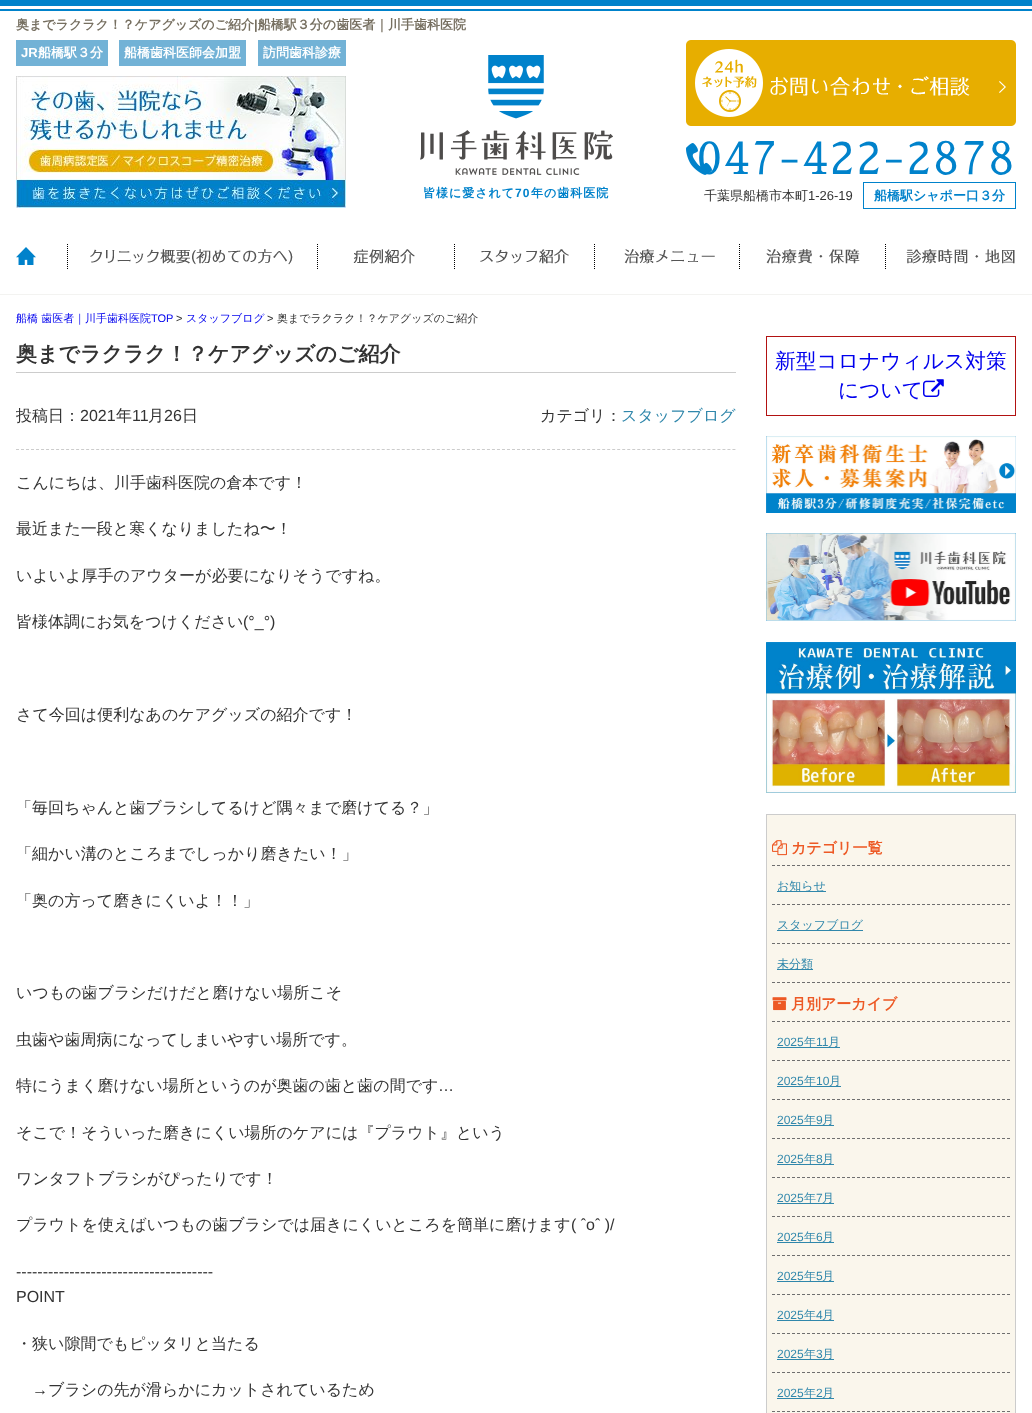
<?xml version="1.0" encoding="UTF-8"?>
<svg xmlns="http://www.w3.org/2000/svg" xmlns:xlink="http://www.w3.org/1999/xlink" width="1032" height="1413">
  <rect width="100%" height="100%" fill="#ffffff" />
  <image x="0" y="0" width="1032" height="11" xlink:href="image1.png" />
  <rect x="16" y="40" width="92" height="26" fill="#72b2d6" />
  <rect x="119" y="40" width="127" height="26" fill="#72b2d6" />
  <rect x="258" y="40" width="88" height="26" fill="#72b2d6" />
  <image x="16" y="76" width="330" height="132" xlink:href="image2.png" />
  <image x="420" y="55" width="193" height="120" xlink:href="image3.png" />
  <image x="686" y="40" width="330" height="86" xlink:href="image4.png" />
  <image x="686" y="143" width="26" height="32" xlink:href="image5.png" />
  <rect x="863.5" y="182.5" width="152" height="26" fill="none" stroke="#0082cb" />
  <rect y="294" width="1032" height="1" fill="#f3f3f1" />
  <image x="16" y="247" width="20" height="18" xlink:href="image6.png" />
  <image x="67" y="244" width="226" height="25" xlink:href="image7.png" />
  <image x="317" y="244" width="138" height="25" xlink:href="image8.png" />
  <image x="480" y="244" width="115" height="25" xlink:href="image9.png" />
  <image x="624" y="244" width="116" height="25" xlink:href="image10.png" />
  <image x="766" y="244" width="120" height="25" xlink:href="image11.png" />
  <image x="906" y="249" width="109" height="15" xlink:href="image12.png" />
  <rect x="16" y="372" width="720" height="1" fill="#cccccc" />
  <path d="M 16 449.5 h 720" fill="none" stroke="#cccccc" stroke-dasharray="3 2.01" />
  <rect x="766.5" y="336.5" width="249" height="79" fill="none" stroke="#b21212" />
  <image x="923" y="379" width="21" height="18" xlink:href="image13.png" />
  <image x="766" y="436" width="250" height="77" xlink:href="image14.png" />
  <image x="766" y="533" width="250" height="88" xlink:href="image15.png" />
  <image x="766" y="642" width="250" height="151" xlink:href="image16.png" />
  <rect x="766.5" y="814.5" width="249" height="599" fill="#faf6ec" stroke="#cccccc" />
  <path d="M 772 865.5 h 238" fill="none" stroke="#6f6f6f" stroke-dasharray="3 2" />
  <image x="772" y="840" width="15" height="16" xlink:href="image17.png" />
  <path d="M 772 904.5 h 238" fill="none" stroke="#6f6f6f" stroke-dasharray="3 2" />
  <rect x="777" y="891" width="49" height="1" fill="#3087ab" />
  <path d="M 772 943.5 h 238" fill="none" stroke="#6f6f6f" stroke-dasharray="3 2" />
  <rect x="777" y="930" width="86" height="1" fill="#3087ab" />
  <path d="M 772 982.5 h 238" fill="none" stroke="#6f6f6f" stroke-dasharray="3 2" />
  <rect x="777" y="969" width="36" height="1" fill="#3087ab" />
  <path d="M 772 1021.5 h 238" fill="none" stroke="#6f6f6f" stroke-dasharray="3 2" />
  <image x="772" y="997" width="15" height="14" xlink:href="image18.png" />
  <path d="M 772 1060.5 h 238" fill="none" stroke="#6f6f6f" stroke-dasharray="3 2" />
  <rect x="777" y="1047" width="63" height="1" fill="#3087ab" />
  <path d="M 772 1099.5 h 238" fill="none" stroke="#6f6f6f" stroke-dasharray="3 2" />
  <rect x="777" y="1086" width="64" height="1" fill="#3087ab" />
  <path d="M 772 1138.5 h 238" fill="none" stroke="#6f6f6f" stroke-dasharray="3 2" />
  <rect x="777" y="1125" width="57" height="1" fill="#3087ab" />
  <path d="M 772 1177.5 h 238" fill="none" stroke="#6f6f6f" stroke-dasharray="3 2" />
  <rect x="777" y="1164" width="57" height="1" fill="#3087ab" />
  <path d="M 772 1216.5 h 238" fill="none" stroke="#6f6f6f" stroke-dasharray="3 2" />
  <rect x="777" y="1203" width="57" height="1" fill="#3087ab" />
  <path d="M 772 1255.5 h 238" fill="none" stroke="#6f6f6f" stroke-dasharray="3 2" />
  <rect x="777" y="1242" width="57" height="1" fill="#3087ab" />
  <path d="M 772 1294.5 h 238" fill="none" stroke="#6f6f6f" stroke-dasharray="3 2" />
  <rect x="777" y="1281" width="57" height="1" fill="#3087ab" />
  <path d="M 772 1333.5 h 238" fill="none" stroke="#6f6f6f" stroke-dasharray="3 2" />
  <rect x="777" y="1320" width="57" height="1" fill="#3087ab" />
  <path d="M 772 1372.5 h 238" fill="none" stroke="#6f6f6f" stroke-dasharray="3 2" />
  <rect x="777" y="1359" width="57" height="1" fill="#3087ab" />
  <path d="M 772 1411.5 h 238" fill="none" stroke="#6f6f6f" stroke-dasharray="3 2" />
  <rect x="777" y="1398" width="57" height="1" fill="#3087ab" />
  <text x="16" y="29" style="font-family: WenQuanYi Zen Hei; font-size: 13px; font-weight: bold; fill: #766f60">奥までラクラク！？ケアグッズのご紹介 船橋駅３分の歯医者｜川手歯科医院</text>
  <text x="254" y="29" style="font-family: Liberation Sans; font-size: 13px; font-weight: bold; fill: #766f60">|</text>
  <text x="21" y="57" style="font-family: Liberation Sans; font-size: 13px; font-weight: bold; fill: #ffffff">JR</text>
  <text x="38" y="57" style="font-family: WenQuanYi Zen Hei; font-size: 13px; font-weight: bold; fill: #ffffff">船橋駅３分</text>
  <text x="124" y="57" style="font-family: WenQuanYi Zen Hei; font-size: 13px; font-weight: bold; fill: #ffffff">船橋歯科医師会加盟</text>
  <text x="263" y="57" style="font-family: WenQuanYi Zen Hei; font-size: 13px; font-weight: bold; fill: #ffffff">訪問歯科診療</text>
  <text x="423" y="197" style="font-family: WenQuanYi Zen Hei; font-size: 12px; font-weight: bold; letter-spacing: 1px; fill: #0082cb">皆様に愛されて</text>
  <text x="515" y="197" style="font-family: Liberation Sans; font-size: 12px; font-weight: bold; letter-spacing: 1px; fill: #0082cb">70</text>
  <text x="531" y="197" style="font-family: WenQuanYi Zen Hei; font-size: 12px; font-weight: bold; letter-spacing: 1px; fill: #0082cb">年の歯科医院</text>
  <text x="697" y="174" style="font-family: Sawarabi Mincho; font-size: 45px; letter-spacing: 2px; fill: #0082cb">047-422-2878</text>
  <text x="704" y="200" style="font-family: WenQuanYi Zen Hei; font-size: 13px; font-weight: 500; fill: #333333">千葉県船橋市本町</text>
  <text x="808" y="200" style="font-family: Liberation Sans; font-size: 13px; fill: #333333">1-26-19</text>
  <text x="874" y="200" style="font-family: WenQuanYi Zen Hei; font-size: 13px; font-weight: bold; fill: #0082cb">船橋駅シャポー口３分</text>
  <text x="16" y="322" style="font-family: WenQuanYi Zen Hei; font-size: 11px; font-weight: 500; fill: #0000ee">船橋 歯医者｜川手歯科医院</text>
  <text x="151" y="322" style="font-family: Liberation Sans; font-size: 11px; fill: #0000ee">TOP</text>
  <text x="176" y="322" style="font-family: Liberation Sans; font-size: 11px; fill: #333333">&gt;</text>
  <text x="186" y="322" style="font-family: WenQuanYi Zen Hei; font-size: 11px; font-weight: 500; fill: #0000ee">スタッフブログ</text>
  <text x="267" y="322" style="font-family: Liberation Sans; font-size: 11px; fill: #333333">&gt;</text>
  <text x="277" y="322" style="font-family: WenQuanYi Zen Hei; font-size: 11px; font-weight: 500; fill: #333333">奥までラクラク！？ケアグッズのご紹介</text>
  <text x="16" y="361" style="font-family: WenQuanYi Zen Hei; font-size: 21px; font-weight: bold; fill: #333333">奥までラクラク！？ケアグッズのご紹介</text>
  <text x="16" y="421" style="font-family: WenQuanYi Zen Hei; font-size: 16px; font-weight: 500; fill: #333333">投稿日：</text>
  <text x="80" y="421" style="font-family: Liberation Sans; font-size: 16px; fill: #333333">2021</text>
  <text x="116" y="421" style="font-family: WenQuanYi Zen Hei; font-size: 16px; font-weight: 500; fill: #333333">年</text>
  <text x="132" y="421" style="font-family: Liberation Sans; font-size: 16px; fill: #333333">11</text>
  <text x="148" y="421" style="font-family: WenQuanYi Zen Hei; font-size: 16px; font-weight: 500; fill: #333333">月</text>
  <text x="164" y="421" style="font-family: Liberation Sans; font-size: 16px; fill: #333333">26</text>
  <text x="182" y="421" style="font-family: WenQuanYi Zen Hei; font-size: 16px; font-weight: 500; fill: #333333">日</text>
  <text x="540" y="421" style="font-family: WenQuanYi Zen Hei; font-size: 16px; font-weight: 500; fill: #333333">カテゴリ：</text>
  <text x="621" y="421" style="font-family: WenQuanYi Zen Hei; font-size: 16px; font-weight: 500; fill: #3087ab">スタッフブログ</text>
  <text x="16" y="488" style="font-family: WenQuanYi Zen Hei; font-size: 16px; font-weight: 500; fill: #333333">こんにちは、川手歯科医院の倉本です！</text>
  <text x="16" y="534" style="font-family: WenQuanYi Zen Hei; font-size: 16px; font-weight: 500; fill: #333333">最近また一段と寒くなりましたね〜！</text>
  <text x="16" y="581" style="font-family: WenQuanYi Zen Hei; font-size: 16px; font-weight: 500; fill: #333333">いよいよ厚手のアウターが必要になりそうですね。</text>
  <text x="16" y="627" style="font-family: WenQuanYi Zen Hei; font-size: 16px; font-weight: 500; fill: #333333">皆様体調にお気をつけください</text>
  <text x="243" y="627" style="font-family: Liberation Sans; font-size: 16px; fill: #333333">(°_°)</text>
  <text x="16" y="720" style="font-family: WenQuanYi Zen Hei; font-size: 16px; font-weight: 500; fill: #333333">さて今回は便利なあのケアグッズの紹介です！</text>
  <text x="16" y="813" style="font-family: WenQuanYi Zen Hei; font-size: 16px; font-weight: 500; fill: #333333">「毎回ちゃんと歯ブラシしてるけど隅々まで磨けてる？」</text>
  <text x="16" y="859" style="font-family: WenQuanYi Zen Hei; font-size: 16px; font-weight: 500; fill: #333333">「細かい溝のところまでしっかり磨きたい！」</text>
  <text x="16" y="906" style="font-family: WenQuanYi Zen Hei; font-size: 16px; font-weight: 500; fill: #333333">「奥の方って磨きにくいよ！！」</text>
  <text x="16" y="998" style="font-family: WenQuanYi Zen Hei; font-size: 16px; font-weight: 500; fill: #333333">いつもの歯ブラシだけだと磨けない場所こそ</text>
  <text x="16" y="1045" style="font-family: WenQuanYi Zen Hei; font-size: 16px; font-weight: 500; fill: #333333">虫歯や歯周病になってしまいやすい場所です。</text>
  <text x="16" y="1091" style="font-family: WenQuanYi Zen Hei; font-size: 16px; font-weight: 500; fill: #333333">特にうまく磨けない場所というのが奥歯の歯と歯の間です</text>
  <text x="438" y="1091" style="font-family: Liberation Sans; font-size: 16px; fill: #333333">…</text>
  <text x="16" y="1138" style="font-family: WenQuanYi Zen Hei; font-size: 16px; font-weight: 500; fill: #333333">そこで！そういった磨きにくい場所のケアには『プラウト』という</text>
  <text x="16" y="1184" style="font-family: WenQuanYi Zen Hei; font-size: 16px; font-weight: 500; fill: #333333">ワンタフトブラシがぴったりです！</text>
  <text x="16" y="1230" style="font-family: WenQuanYi Zen Hei; font-size: 16px; font-weight: 500; fill: #333333">プラウトを使えばいつもの歯ブラシでは届きにくいところを簡単に磨けます</text>
  <text x="571" y="1230" style="font-family: Liberation Sans; font-size: 16px; fill: #333333">( ˆoˆ )/</text>
  <text x="16" y="1277" style="font-family: Liberation Sans; font-size: 16px; fill: #333333">-------------------------------------</text>
  <text x="16" y="1302" style="font-family: Liberation Sans; font-size: 16px; fill: #333333">POINT</text>
  <text x="16" y="1349" style="font-family: WenQuanYi Zen Hei; font-size: 16px; font-weight: 500; fill: #333333">・狭い隙間でもピッタリと当たる</text>
  <text x="32" y="1395" style="font-family: Liberation Sans; font-size: 16px; fill: #333333">→</text>
  <text x="48" y="1395" style="font-family: WenQuanYi Zen Hei; font-size: 16px; font-weight: 500; fill: #333333">ブラシの先が滑らかにカットされているため</text>
  <text x="775" y="368" style="font-family: WenQuanYi Zen Hei; font-size: 20.75px; font-weight: 500; fill: #0000ee">新型コロナウィルス対策</text>
  <text x="838" y="397" style="font-family: WenQuanYi Zen Hei; font-size: 20.75px; font-weight: 500; fill: #0000ee">について</text>
  <text x="791" y="853" style="font-family: WenQuanYi Zen Hei; font-size: 15px; font-weight: bold; fill: #ed5925">カテゴリ一覧</text>
  <text x="777" y="890" style="font-family: WenQuanYi Zen Hei; font-size: 12px; font-weight: 500; fill: #3087ab">お知らせ</text>
  <text x="777" y="929" style="font-family: WenQuanYi Zen Hei; font-size: 12px; font-weight: 500; fill: #3087ab">スタッフブログ</text>
  <text x="777" y="968" style="font-family: WenQuanYi Zen Hei; font-size: 12px; font-weight: 500; fill: #3087ab">未分類</text>
  <text x="791" y="1009" style="font-family: WenQuanYi Zen Hei; font-size: 15px; font-weight: bold; fill: #ed5925">月別アーカイブ</text>
  <text x="777" y="1046" style="font-family: Liberation Sans; font-size: 12px; fill: #3087ab">2025</text>
  <text x="804" y="1046" style="font-family: WenQuanYi Zen Hei; font-size: 12px; font-weight: 500; fill: #3087ab">年</text>
  <text x="816" y="1046" style="font-family: Liberation Sans; font-size: 12px; fill: #3087ab">11</text>
  <text x="828" y="1046" style="font-family: WenQuanYi Zen Hei; font-size: 12px; font-weight: 500; fill: #3087ab">月</text>
  <text x="777" y="1085" style="font-family: Liberation Sans; font-size: 12px; fill: #3087ab">2025</text>
  <text x="804" y="1085" style="font-family: WenQuanYi Zen Hei; font-size: 12px; font-weight: 500; fill: #3087ab">年</text>
  <text x="816" y="1085" style="font-family: Liberation Sans; font-size: 12px; fill: #3087ab">10</text>
  <text x="829" y="1085" style="font-family: WenQuanYi Zen Hei; font-size: 12px; font-weight: 500; fill: #3087ab">月</text>
  <text x="777" y="1124" style="font-family: Liberation Sans; font-size: 12px; fill: #3087ab">2025</text>
  <text x="804" y="1124" style="font-family: WenQuanYi Zen Hei; font-size: 12px; font-weight: 500; fill: #3087ab">年</text>
  <text x="816" y="1124" style="font-family: Liberation Sans; font-size: 12px; fill: #3087ab">9</text>
  <text x="822" y="1124" style="font-family: WenQuanYi Zen Hei; font-size: 12px; font-weight: 500; fill: #3087ab">月</text>
  <text x="777" y="1163" style="font-family: Liberation Sans; font-size: 12px; fill: #3087ab">2025</text>
  <text x="804" y="1163" style="font-family: WenQuanYi Zen Hei; font-size: 12px; font-weight: 500; fill: #3087ab">年</text>
  <text x="816" y="1163" style="font-family: Liberation Sans; font-size: 12px; fill: #3087ab">8</text>
  <text x="822" y="1163" style="font-family: WenQuanYi Zen Hei; font-size: 12px; font-weight: 500; fill: #3087ab">月</text>
  <text x="777" y="1202" style="font-family: Liberation Sans; font-size: 12px; fill: #3087ab">2025</text>
  <text x="804" y="1202" style="font-family: WenQuanYi Zen Hei; font-size: 12px; font-weight: 500; fill: #3087ab">年</text>
  <text x="816" y="1202" style="font-family: Liberation Sans; font-size: 12px; fill: #3087ab">7</text>
  <text x="822" y="1202" style="font-family: WenQuanYi Zen Hei; font-size: 12px; font-weight: 500; fill: #3087ab">月</text>
  <text x="777" y="1241" style="font-family: Liberation Sans; font-size: 12px; fill: #3087ab">2025</text>
  <text x="804" y="1241" style="font-family: WenQuanYi Zen Hei; font-size: 12px; font-weight: 500; fill: #3087ab">年</text>
  <text x="816" y="1241" style="font-family: Liberation Sans; font-size: 12px; fill: #3087ab">6</text>
  <text x="822" y="1241" style="font-family: WenQuanYi Zen Hei; font-size: 12px; font-weight: 500; fill: #3087ab">月</text>
  <text x="777" y="1280" style="font-family: Liberation Sans; font-size: 12px; fill: #3087ab">2025</text>
  <text x="804" y="1280" style="font-family: WenQuanYi Zen Hei; font-size: 12px; font-weight: 500; fill: #3087ab">年</text>
  <text x="816" y="1280" style="font-family: Liberation Sans; font-size: 12px; fill: #3087ab">5</text>
  <text x="822" y="1280" style="font-family: WenQuanYi Zen Hei; font-size: 12px; font-weight: 500; fill: #3087ab">月</text>
  <text x="777" y="1319" style="font-family: Liberation Sans; font-size: 12px; fill: #3087ab">2025</text>
  <text x="804" y="1319" style="font-family: WenQuanYi Zen Hei; font-size: 12px; font-weight: 500; fill: #3087ab">年</text>
  <text x="816" y="1319" style="font-family: Liberation Sans; font-size: 12px; fill: #3087ab">4</text>
  <text x="822" y="1319" style="font-family: WenQuanYi Zen Hei; font-size: 12px; font-weight: 500; fill: #3087ab">月</text>
  <text x="777" y="1358" style="font-family: Liberation Sans; font-size: 12px; fill: #3087ab">2025</text>
  <text x="804" y="1358" style="font-family: WenQuanYi Zen Hei; font-size: 12px; font-weight: 500; fill: #3087ab">年</text>
  <text x="816" y="1358" style="font-family: Liberation Sans; font-size: 12px; fill: #3087ab">3</text>
  <text x="822" y="1358" style="font-family: WenQuanYi Zen Hei; font-size: 12px; font-weight: 500; fill: #3087ab">月</text>
  <text x="777" y="1397" style="font-family: Liberation Sans; font-size: 12px; fill: #3087ab">2025</text>
  <text x="804" y="1397" style="font-family: WenQuanYi Zen Hei; font-size: 12px; font-weight: 500; fill: #3087ab">年</text>
  <text x="816" y="1397" style="font-family: Liberation Sans; font-size: 12px; fill: #3087ab">2</text>
  <text x="822" y="1397" style="font-family: WenQuanYi Zen Hei; font-size: 12px; font-weight: 500; fill: #3087ab">月</text>
</svg>
